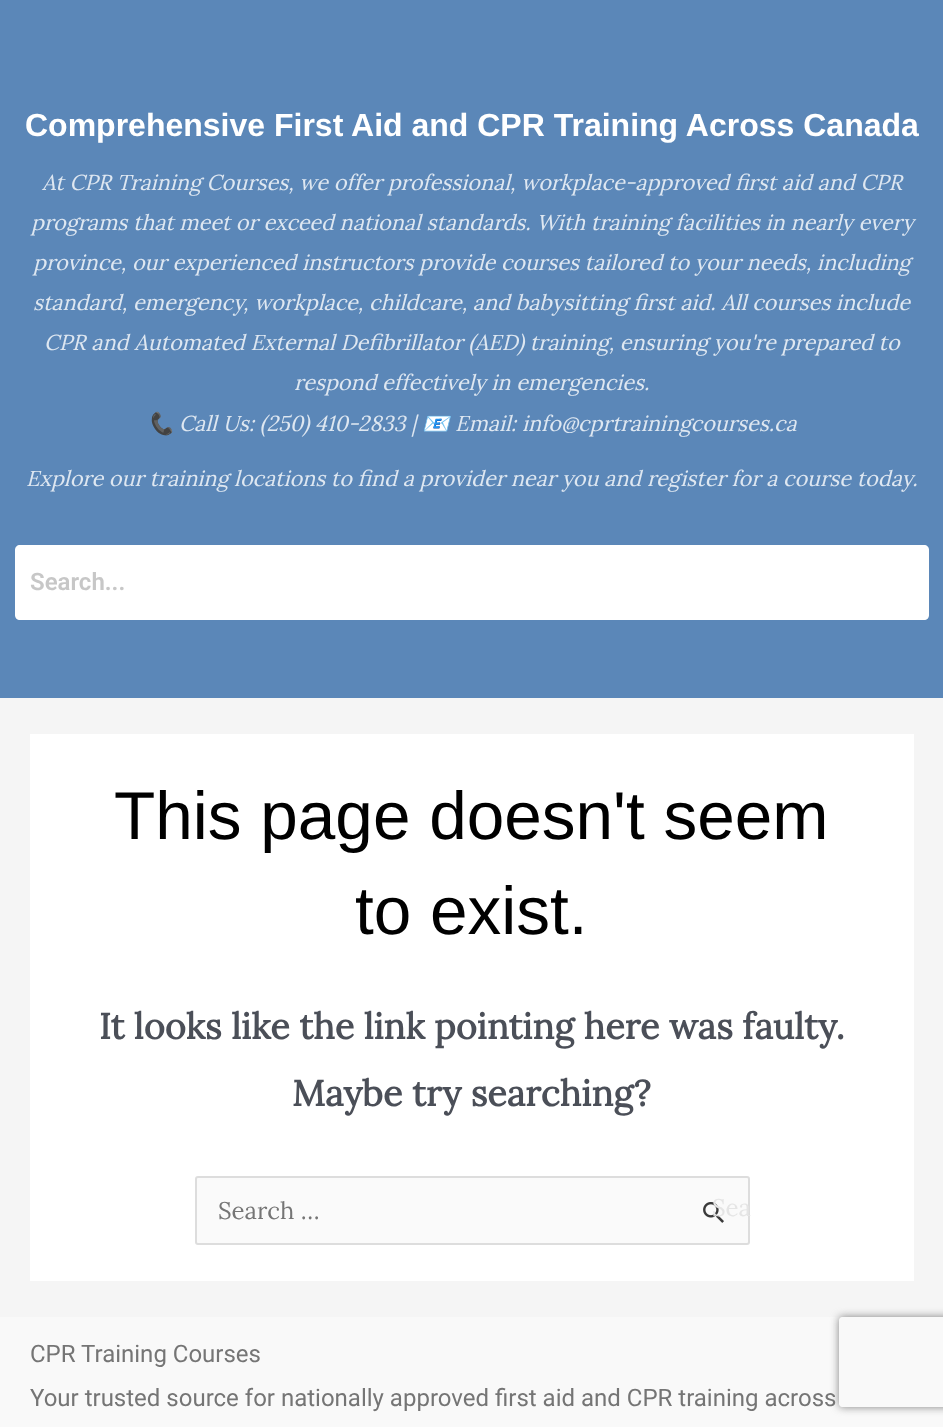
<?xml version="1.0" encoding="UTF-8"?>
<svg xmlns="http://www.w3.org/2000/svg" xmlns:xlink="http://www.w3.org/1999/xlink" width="943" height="1427">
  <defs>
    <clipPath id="clip1"><path d="M 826 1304 h 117 v 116 h -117 z m 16 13 h 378 c 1.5 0 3 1.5 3 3 v 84 c 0 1.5 -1.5 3 -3 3 h -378 c -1.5 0 -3 -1.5 -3 -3 v -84 c 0 -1.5 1.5 -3 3 -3 z" clip-rule="evenodd" /></clipPath>
  </defs>
  <rect width="100%" height="100%" fill="#f5f5f5" />
  <rect width="943" height="698" fill="#5b87b8" />
  <path d="M 20 545 h 834 v 75 h -834 c -3 0 -5 -2 -5 -5 v -65 c 0 -3 2 -5 5 -5 z" fill="#ffffff" />
  <path d="M 854 545 h 70 c 3 0 5 2 5 5 v 65 c 0 3 -2 5 -5 5 h -70 z" fill="#ffffff" />
  <rect x="30" y="734" width="884" height="547" fill="#ffffff" />
  <rect x="196" y="1177" width="553" height="67" rx="2" fill="#fafafa" stroke="#dddddd" stroke-width="2" />
  <image x="703" y="1202" width="21" height="21" xlink:href="image1.png" />
  <rect y="1317" width="943" height="110" fill="#f9f9f9" />
  <g clip-path="url(#clip1)">
    <rect x="839" y="1317" width="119" height="90" rx="3" fill="#808080" filter="blur(4px)" />
  </g>
  <text x="25" y="136" style="font-family: Liberation Sans; font-size: 32px; font-weight: bold; fill: #ffffff">Comprehensive First Aid and CPR Training Across Canada</text>
  <text x="42" y="190" style="font-family: Lora; font-size: 21.6px; font-style: italic; fill: #dee7f1">At CPR Training Courses, we offer professional, workplace-approved first aid and CPR</text>
  <text x="31" y="230" style="font-family: Lora; font-size: 21.6px; font-style: italic; fill: #dee7f1">programs that meet or exceed national standards. With training facilities in nearly every</text>
  <text x="33" y="270" style="font-family: Lora; font-size: 21.6px; font-style: italic; fill: #dee7f1">province, our experienced instructors provide courses tailored to your needs, including</text>
  <text x="33" y="310" style="font-family: Lora; font-size: 21.6px; font-style: italic; fill: #dee7f1">standard, emergency, workplace, childcare, and babysitting first aid. All courses include</text>
  <text x="44" y="350" style="font-family: Lora; font-size: 21.6px; font-style: italic; fill: #dee7f1">CPR and Automated External Defibrillator (AED) training, ensuring you're prepared to</text>
  <text x="294" y="390" style="font-family: Lora; font-size: 21.6px; font-style: italic; fill: #dee7f1">respond effectively in emergencies.</text>
  <text x="147" y="431" style="font-family: Noto Color Emoji; font-size: 21.6px; font-style: italic; fill: #dee7f1">📞</text>
  <text x="179" y="431" style="font-family: Lora; font-size: 21.6px; font-style: italic; fill: #dee7f1">Call Us: (250) 410-2833 |</text>
  <text x="422" y="431" style="font-family: Noto Color Emoji; font-size: 21.6px; font-style: italic; fill: #dee7f1">📧</text>
  <text x="455" y="431" style="font-family: Lora; font-size: 21.6px; font-style: italic; fill: #dee7f1">Email: info@cprtrainingcourses.ca</text>
  <text x="26" y="486" style="font-family: Lora; font-size: 21.6px; font-style: italic; fill: #dee7f1">Explore our training locations to find a provider near you and register for a course today.</text>
  <text x="30" y="590" style="font-family: Roboto; font-size: 24px; font-weight: 600; fill: #c7c7c7">Search...</text>
  <text x="114" y="839" style="font-family: Liberation Sans; font-size: 67.5px; fill: #000000">This page doesn't seem</text>
  <text x="355" y="934" style="font-family: Liberation Sans; font-size: 67.5px; fill: #000000">to exist.</text>
  <text x="99" y="1039" style="font-family: Lora; font-size: 36px; font-weight: bold; fill: #4b4f58">It looks like the link pointing here was faulty.</text>
  <text x="292" y="1106" style="font-family: Lora; font-size: 36px; font-weight: bold; fill: #4b4f58">Maybe try searching?</text>
  <text x="218" y="1219" style="font-family: Lora; font-size: 24px; fill: #757575">Search …</text>
  <text x="712" y="1216" style="font-family: Lora; font-size: 24px; fill: #e5e5e5">Sea</text>
  <text x="30" y="1362" style="font-family: Roboto; font-size: 24px; fill: #757575">CPR Training Courses</text>
  <text x="30" y="1406" style="font-family: Roboto; font-size: 24px; fill: #757575">Your trusted source for nationally approved first aid and CPR training across</text>
</svg>
